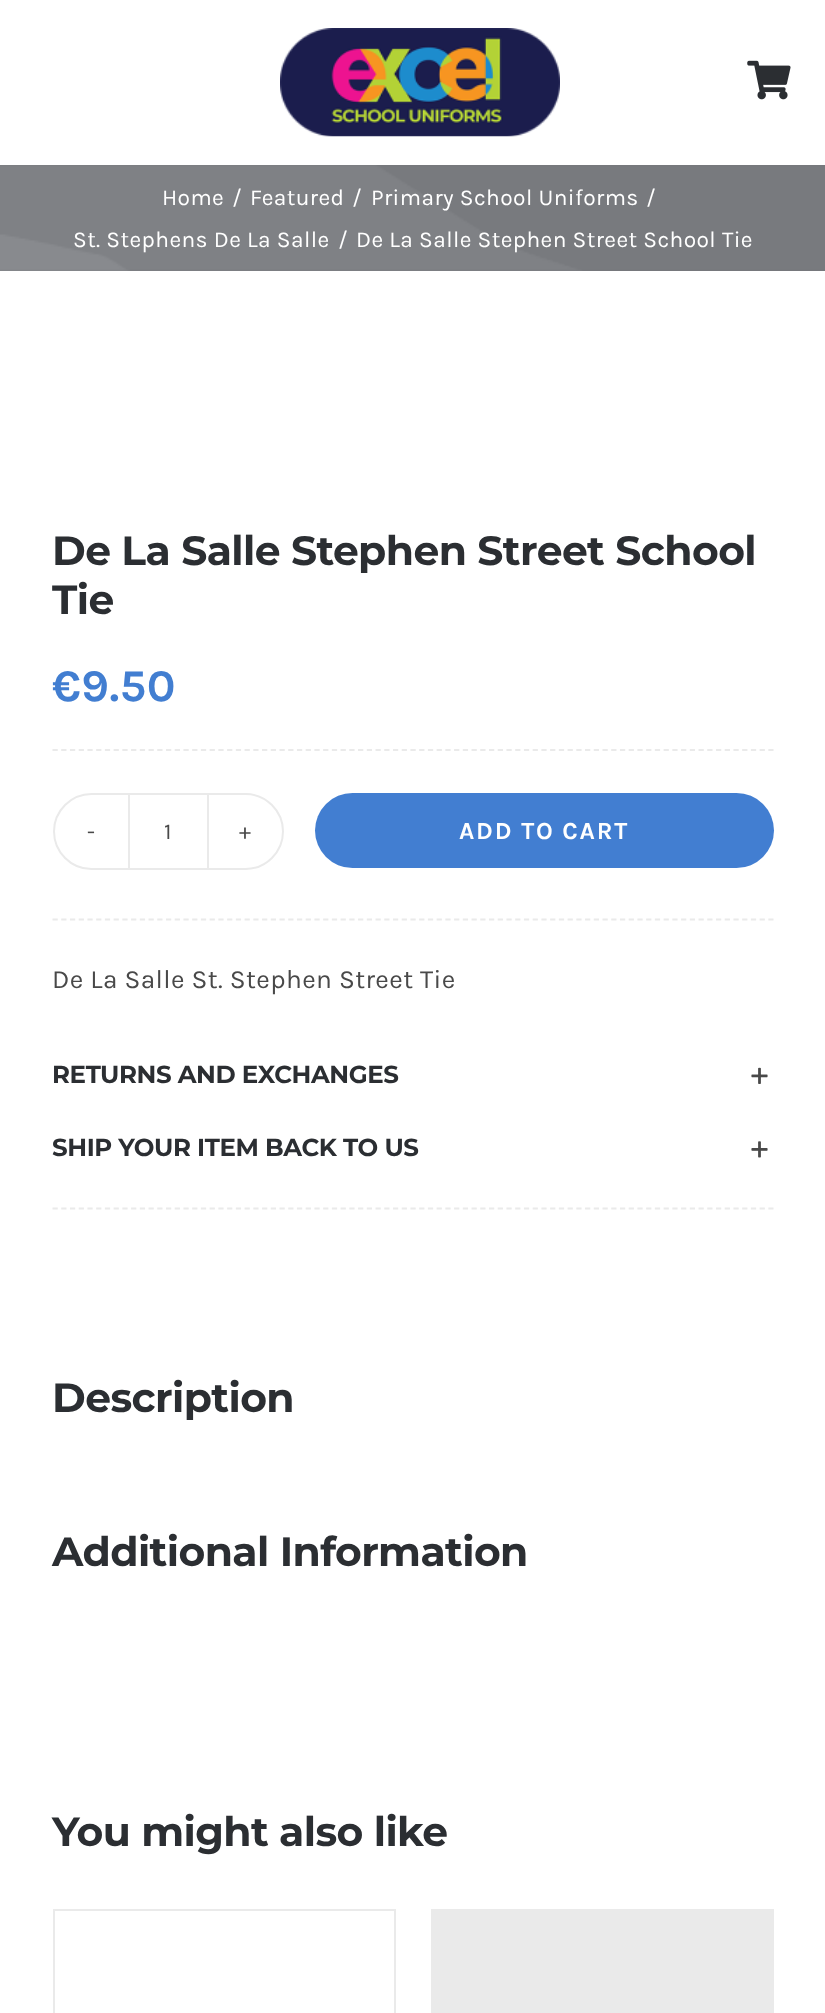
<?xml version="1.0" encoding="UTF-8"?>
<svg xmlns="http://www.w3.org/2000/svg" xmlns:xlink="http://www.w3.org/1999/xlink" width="825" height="2013">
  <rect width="100%" height="100%" fill="#ffffff" />
  <image x="280" y="28" width="280" height="109" xlink:href="image1.png" />
  <image x="747" y="60" width="44" height="40" xlink:href="image2.png" />
  <image x="0" y="165" width="825" height="106" xlink:href="image3.png" />
  <path d="M 52.5 750 h 721" fill="none" stroke="#eaeaea" stroke-width="1.8" stroke-dasharray="5.25 3.48" />
  <path d="M 91.5 794 h 37.5 v 75 h -37.5 c -20.5 0 -37.5 -17 -37.5 -37.5 c 0 -20.5 17 -37.5 37.5 -37.5 z" fill="none" stroke="#eaeaea" stroke-width="2" />
  <rect x="130" y="793" width="77" height="2" fill="#eaeaea" />
  <rect x="130" y="868" width="77" height="2" fill="#eaeaea" />
  <path d="M 208 794 h 37.5 c 20.5 0 37.5 17 37.5 37.5 c 0 20.5 -17 37.5 -37.5 37.5 h -37.5 z" fill="none" stroke="#eaeaea" stroke-width="2" />
  <rect x="315" y="793" width="459" height="75" rx="37.5" fill="#427ed1" />
  <path d="M 52.5 919.5 h 721" fill="none" stroke="#eaeaea" stroke-width="1.8" stroke-dasharray="5.25 3.48" />
  <image x="751" y="1067" width="17" height="17" xlink:href="image4.png" />
  <image x="751" y="1141" width="17" height="17" xlink:href="image5.png" />
  <path d="M 52.5 1208.5 h 721" fill="none" stroke="#eaeaea" stroke-width="1.8" stroke-dasharray="5.25 3.48" />
  <rect x="53" y="1909" width="343" height="2" fill="#eaeaea" />
  <rect x="394" y="1909" width="2" height="104" fill="#eaeaea" />
  <rect x="53" y="1909" width="2" height="104" fill="#eaeaea" />
  <rect x="431" y="1909" width="343" height="2" fill="#eaeaea" />
  <rect x="772" y="1909" width="2" height="104" fill="#eaeaea" />
  <rect x="431" y="1909" width="2" height="104" fill="#eaeaea" />
  <rect x="433" y="1911" width="339" height="102" fill="#eaeaea" />
  <text x="162" y="205" style="font-family: Karla; font-size: 22.75px; letter-spacing: 0.4px; fill: #ffffff">Home</text>
  <text x="232" y="205" style="font-family: Karla; font-size: 22.75px; letter-spacing: 0.4px; fill: #ffffff">/</text>
  <text x="250" y="205" style="font-family: Karla; font-size: 22.75px; letter-spacing: 0.4px; fill: #ffffff">Featured</text>
  <text x="352" y="205" style="font-family: Karla; font-size: 22.75px; letter-spacing: 0.4px; fill: #ffffff">/</text>
  <text x="371" y="205" style="font-family: Karla; font-size: 22.75px; letter-spacing: 0.4px; fill: #ffffff">Primary School Uniforms</text>
  <text x="646" y="205" style="font-family: Karla; font-size: 22.75px; letter-spacing: 0.4px; fill: #ffffff">/</text>
  <text x="73" y="247" style="font-family: Karla; font-size: 22.75px; letter-spacing: 0.4px; fill: #ffffff">St. Stephens De La Salle</text>
  <text x="338" y="247" style="font-family: Karla; font-size: 22.75px; letter-spacing: 0.4px; fill: #ffffff">/</text>
  <text x="356" y="247" style="font-family: Karla; font-size: 22.75px; letter-spacing: 0.4px; fill: #ffffff">De La Salle Stephen Street School Tie</text>
  <text x="52" y="565" style="font-family: Montserrat; font-size: 40.9px; font-weight: 100; letter-spacing: -0.6px; fill: #2b2e32">De La Salle Stephen Street School</text>
  <text x="52" y="614" style="font-family: Montserrat; font-size: 40.9px; font-weight: 100; letter-spacing: -0.6px; fill: #2b2e32">Tie</text>
  <text x="52" y="701" style="font-family: Karla; font-size: 45.5px; font-weight: bold; letter-spacing: 0.5px; fill: #427ed1">€9.50</text>
  <text x="87" y="839" style="font-family: Karla; font-size: 22.75px; fill: #494949">-</text>
  <text x="164" y="839" style="font-family: Karla; font-size: 22.75px; fill: #494949">1</text>
  <text x="239" y="839" style="font-family: Karla; font-size: 22.75px; fill: #494949">+</text>
  <text x="459" y="839" style="font-family: Karla; font-size: 24.5px; font-weight: bold; letter-spacing: 1.75px; fill: #ffffff">ADD TO CART</text>
  <text x="52" y="988" style="font-family: Karla; font-size: 26.25px; letter-spacing: 0.4px; fill: #494949">De La Salle St. Stephen Street Tie</text>
  <text x="52" y="1083" style="font-family: Montserrat; font-size: 24.5px; font-weight: 100; letter-spacing: -0.4px; fill: #2b2e32">RETURNS AND EXCHANGES</text>
  <text x="52" y="1156" style="font-family: Montserrat; font-size: 24.5px; font-weight: 100; letter-spacing: -0.4px; fill: #2b2e32">SHIP YOUR ITEM BACK TO US</text>
  <text x="52" y="1412" style="font-family: Montserrat; font-size: 40.9px; font-weight: 100; letter-spacing: -0.6px; fill: #2b2e32">Description</text>
  <text x="52" y="1566" style="font-family: Montserrat; font-size: 40.9px; font-weight: 100; letter-spacing: -0.6px; fill: #2b2e32">Additional Information</text>
  <text x="52" y="1846" style="font-family: Montserrat; font-size: 40.9px; font-weight: 100; letter-spacing: -0.6px; fill: #2b2e32">You might also like</text>
</svg>
